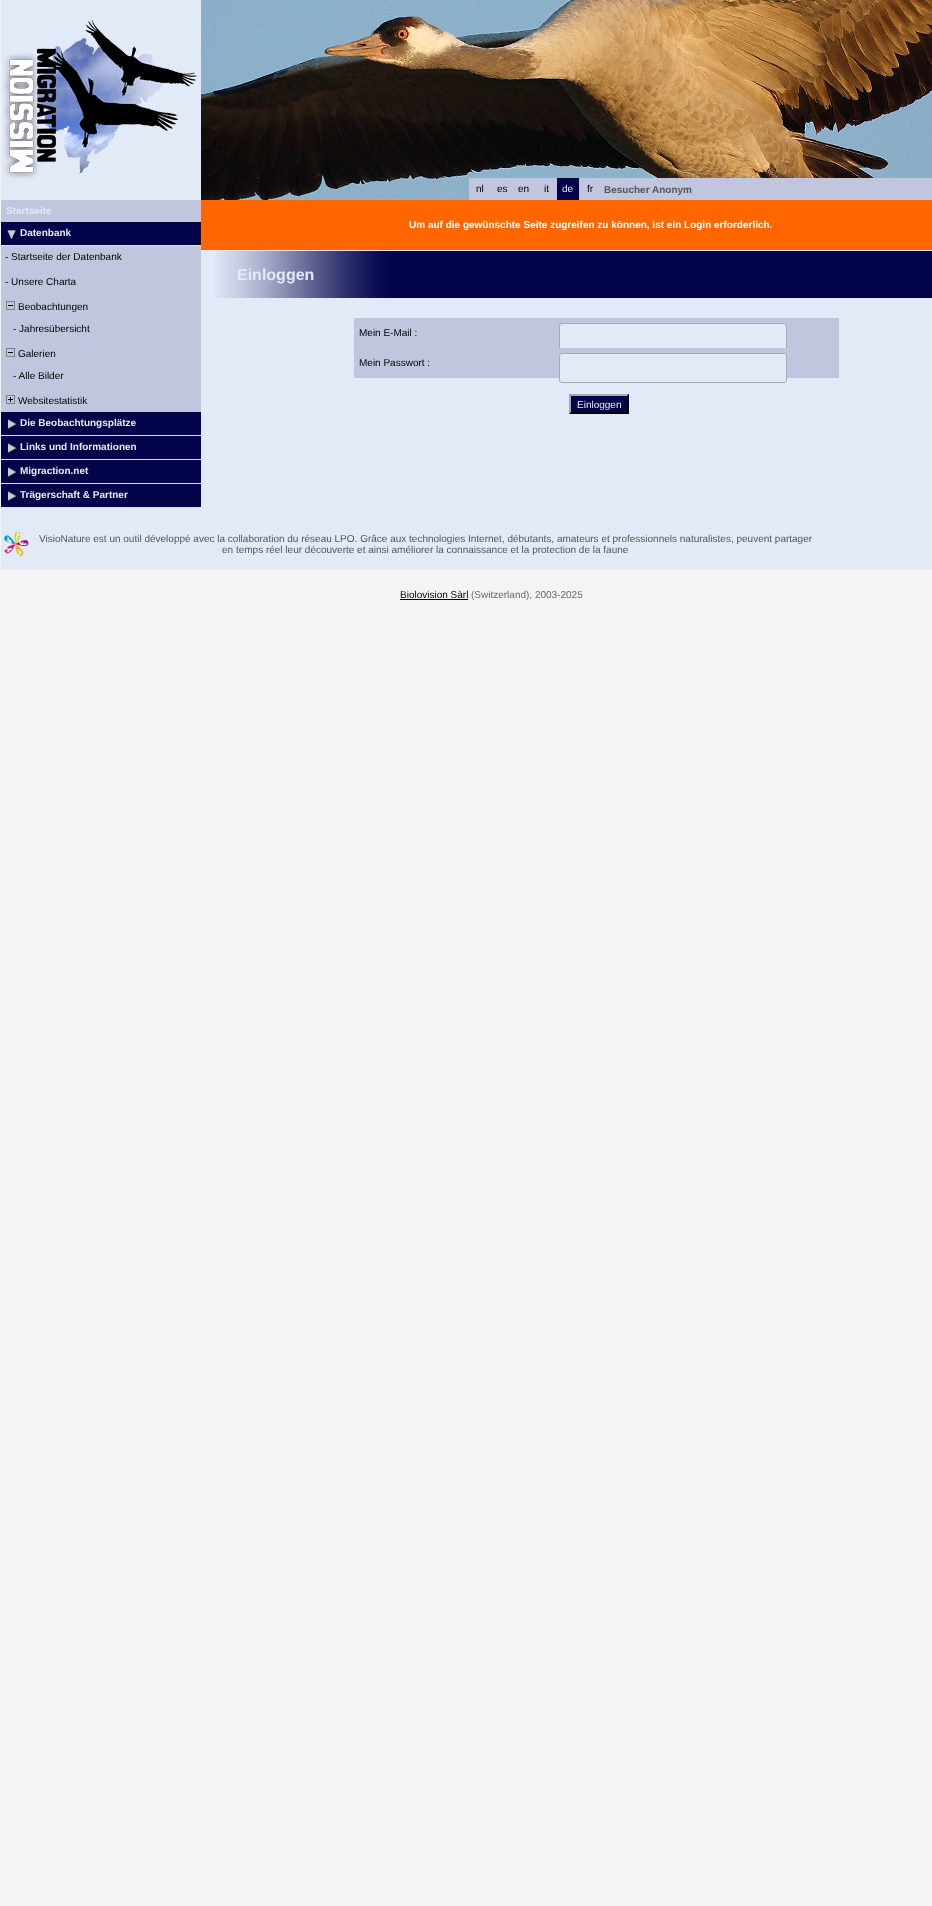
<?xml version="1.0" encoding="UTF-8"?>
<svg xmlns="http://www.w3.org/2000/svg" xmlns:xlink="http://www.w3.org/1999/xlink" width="932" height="1906">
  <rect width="100%" height="100%" fill="#f4f4f4" />
  <image x="1" y="0" width="200" height="200" xlink:href="image1.png" />
  <image x="201" y="0" width="731" height="200" xlink:href="image2.png" />
  <rect x="469" y="178" width="88" height="22" fill="#c0c6dd" />
  <rect x="557" y="178" width="22" height="22" fill="#04044b" />
  <rect x="579" y="178" width="353" height="22" fill="#c0c6dd" />
  <rect x="1" y="200" width="200" height="22" fill="#c0c6dd" />
  <rect x="1" y="222" width="200" height="23" fill="#04044b" />
  <rect x="1" y="245" width="200" height="1" fill="#e0e0e0" />
  <image x="7" y="230" width="9" height="9" xlink:href="image3.png" />
  <rect x="1" y="246" width="200" height="166" fill="#c0c6dd" />
  <image x="6" y="301" width="9" height="9" xlink:href="image4.png" />
  <image x="6" y="348" width="9" height="9" xlink:href="image4.png" />
  <image x="6" y="395" width="9" height="9" xlink:href="image5.png" />
  <rect x="1" y="412" width="200" height="23" fill="#04044b" />
  <rect x="1" y="435" width="200" height="1" fill="#e0e0e0" />
  <image x="8" y="419" width="8" height="10" xlink:href="image6.png" />
  <rect x="1" y="436" width="200" height="23" fill="#04044b" />
  <rect x="1" y="459" width="200" height="1" fill="#e0e0e0" />
  <image x="8" y="443" width="8" height="10" xlink:href="image6.png" />
  <rect x="1" y="460" width="200" height="23" fill="#04044b" />
  <rect x="1" y="483" width="200" height="1" fill="#e0e0e0" />
  <image x="8" y="467" width="8" height="10" xlink:href="image6.png" />
  <rect x="1" y="484" width="200" height="23" fill="#04044b" />
  <rect x="1" y="507" width="200" height="1" fill="#e0e0e0" />
  <image x="8" y="491" width="8" height="10" xlink:href="image6.png" />
  <rect x="201" y="250" width="731" height="258" fill="#e2e9f7" />
  <rect x="201" y="200" width="731" height="50" fill="#ff6600" />
  <image x="215" y="251" width="717" height="47" xlink:href="image7.png" />
  <rect x="354" y="318" width="485" height="30" fill="#c0c6dd" />
  <rect x="559.5" y="323.5" width="227" height="29" rx="2.5" fill="#e2e9f7" stroke="#aaaaaa" />
  <rect x="354" y="348" width="485" height="30" fill="#c0c6dd" />
  <rect x="559.5" y="353.5" width="227" height="29" rx="2.5" fill="#e2e9f7" stroke="#aaaaaa" />
  <rect x="569" y="394" width="60" height="20" fill="#04044b" />
  <path d="M 569 394 h 60 l -2 2 h -56 z" fill="#aaaaaa" />
  <path d="M 629 394 v 20 l -2 -2 v -16 z" fill="#000000" />
  <path d="M 629 414 h -60 l 2 -2 h 56 z" fill="#000000" />
  <path d="M 569 414 v -20 l 2 2 v 16 z" fill="#aaaaaa" />
  <rect x="1" y="508" width="931" height="62" fill="#e2e9f7" />
  <image x="4" y="531" width="25" height="25" xlink:href="image8.png" />
  <rect x="400" y="599" width="68" height="1" fill="#000000" />
  <text x="476" y="192" style="font-family: Liberation Sans; font-size: 10px; fill: #000000">nl</text>
  <text x="497" y="192" style="font-family: Liberation Sans; font-size: 10px; fill: #000000">es</text>
  <text x="518" y="192" style="font-family: Liberation Sans; font-size: 10px; fill: #000000">en</text>
  <text x="544" y="192" style="font-family: Liberation Sans; font-size: 10px; fill: #000000">it</text>
  <text x="562" y="192" style="font-family: Liberation Sans; font-size: 10px; fill: #e2e9f7">de</text>
  <text x="587" y="192" style="font-family: Liberation Sans; font-size: 10px; fill: #000000">fr</text>
  <text x="604" y="193" style="font-family: Liberation Sans; font-size: 10px; font-weight: bold; fill: #555555">Besucher Anonym</text>
  <text x="6" y="214" style="font-family: Liberation Sans; font-size: 10px; font-weight: bold; fill: #e2e9f7">Startseite</text>
  <text x="20" y="236" style="font-family: Liberation Sans; font-size: 10px; font-weight: bold; fill: #e2e9f7">Datenbank</text>
  <text x="5" y="260" style="font-family: Liberation Sans; font-size: 10px; fill: #000000">- Startseite der Datenbank</text>
  <text x="5" y="285" style="font-family: Liberation Sans; font-size: 10px; fill: #000000">- Unsere Charta</text>
  <text x="18" y="310" style="font-family: Liberation Sans; font-size: 10px; fill: #000000">Beobachtungen</text>
  <text x="13" y="332" style="font-family: Liberation Sans; font-size: 10px; fill: #000000">- Jahresübersicht</text>
  <text x="18" y="357" style="font-family: Liberation Sans; font-size: 10px; fill: #000000">Galerien</text>
  <text x="13" y="379" style="font-family: Liberation Sans; font-size: 10px; fill: #000000">- Alle Bilder</text>
  <text x="18" y="404" style="font-family: Liberation Sans; font-size: 10px; fill: #000000">Websitestatistik</text>
  <text x="20" y="426" style="font-family: Liberation Sans; font-size: 10px; font-weight: bold; fill: #e2e9f7">Die Beobachtungsplätze</text>
  <text x="20" y="450" style="font-family: Liberation Sans; font-size: 10px; font-weight: bold; fill: #e2e9f7">Links und Informationen</text>
  <text x="20" y="474" style="font-family: Liberation Sans; font-size: 10px; font-weight: bold; fill: #e2e9f7">Migraction.net</text>
  <text x="20" y="498" style="font-family: Liberation Sans; font-size: 10px; font-weight: bold; fill: #e2e9f7">Trägerschaft &amp; Partner</text>
  <text x="409" y="228" style="font-family: Liberation Sans; font-size: 10px; font-weight: bold; fill: #ffffff">Um auf die gewünschte Seite zugreifen zu können, ist ein Login erforderlich.</text>
  <text x="237" y="280" style="font-family: Liberation Sans; font-size: 16px; font-weight: bold; fill: #e2e9f7">Einloggen</text>
  <text x="359" y="336" style="font-family: Liberation Sans; font-size: 10px; fill: #000000">Mein E-Mail :</text>
  <text x="359" y="366" style="font-family: Liberation Sans; font-size: 10px; fill: #000000">Mein Passwort :</text>
  <text x="577" y="408" style="font-family: Liberation Sans; font-size: 10px; fill: #e2e9f7">Einloggen</text>
  <text x="39" y="542" style="font-family: Liberation Sans; font-size: 10px; fill: #555555">VisioNature est un outil développé avec la collaboration du réseau LPO. Grâce aux technologies Internet, débutants, amateurs et professionnels naturalistes, peuvent partager</text>
  <text x="222" y="553" style="font-family: Liberation Sans; font-size: 10px; fill: #555555">en temps réel leur découverte et ainsi améliorer la connaissance et la protection de la faune</text>
  <text x="400" y="598" style="font-family: Liberation Sans; font-size: 10px; fill: #000000">Biolovision Sàrl</text>
  <text x="471" y="598" style="font-family: Liberation Sans; font-size: 10px; fill: #666666">(Switzerland), 2003-2025</text>
</svg>
